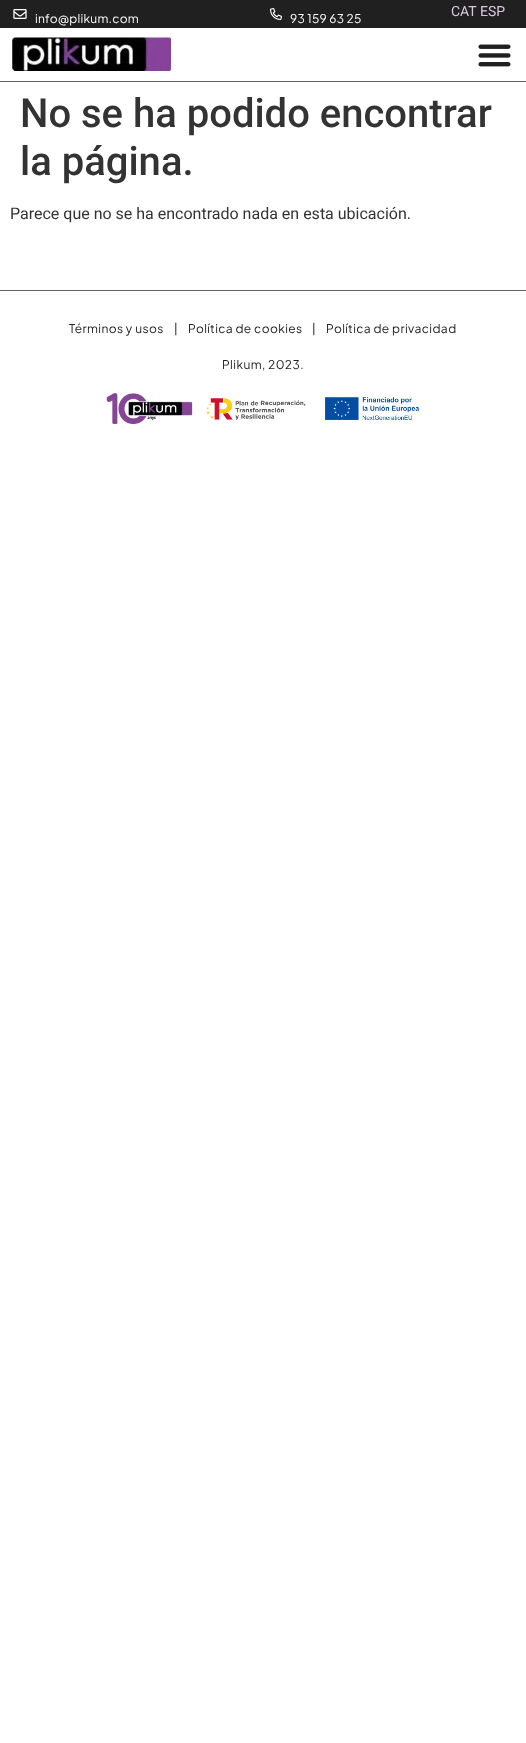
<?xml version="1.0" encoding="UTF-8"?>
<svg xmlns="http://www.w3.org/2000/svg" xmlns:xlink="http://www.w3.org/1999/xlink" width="526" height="1743">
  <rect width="100%" height="100%" fill="#ffffff" />
  <rect width="526" height="28" fill="#202020" />
  <image x="13" y="9" width="14" height="10" xlink:href="image1.png" />
  <image x="270" y="8" width="12" height="12" xlink:href="image2.png" />
  <rect y="81" width="526" height="1" fill="#626262" />
  <image x="12" y="37" width="159" height="34" xlink:href="image3.png" />
  <image x="478" y="44" width="33" height="23" xlink:href="image4.png" />
  <rect y="290" width="526" height="1" fill="#626262" />
  <image x="106" y="393" width="87" height="31" xlink:href="image5.png" />
  <image x="206" y="398" width="100" height="22" xlink:href="image6.png" />
  <image x="325" y="397" width="94" height="23" xlink:href="image7.png" />
  <text x="451" y="16" style="font-family: Roboto; font-size: 14px; fill: #dbc6e1">CAT</text>
  <text x="480" y="16" style="font-family: Roboto; font-size: 14px; fill: #dbc6e1">ESP</text>
  <text x="35" y="23" style="font-family: Plus Jakarta Sans; font-size: 12px; letter-spacing: 0.25px; fill: #ffffff">info@plikum.com</text>
  <text x="290" y="23" style="font-family: Plus Jakarta Sans; font-size: 12px; letter-spacing: 0.25px; fill: #ffffff">93 159 63 25</text>
  <text x="20" y="127" style="font-family: Roboto; font-size: 40px; font-weight: 500; fill: #333333">No se ha podido encontrar</text>
  <text x="20" y="175" style="font-family: Roboto; font-size: 40px; font-weight: 500; fill: #333333">la página.</text>
  <text x="10" y="219" style="font-family: Roboto; font-size: 16px; fill: #333333">Parece que no se ha encontrado nada en esta ubicación.</text>
  <text x="69" y="333" style="font-family: Plus Jakarta Sans; font-size: 12px; letter-spacing: 0.4px; fill: #202020">Términos y usos</text>
  <text x="174" y="333" style="font-family: Plus Jakarta Sans; font-size: 12px; letter-spacing: 0.4px; fill: #202020">|</text>
  <text x="188" y="333" style="font-family: Plus Jakarta Sans; font-size: 12px; letter-spacing: 0.4px; fill: #202020">Política de cookies</text>
  <text x="312" y="333" style="font-family: Plus Jakarta Sans; font-size: 12px; letter-spacing: 0.4px; fill: #202020">|</text>
  <text x="326" y="333" style="font-family: Plus Jakarta Sans; font-size: 12px; letter-spacing: 0.4px; fill: #202020">Política de privacidad</text>
  <text x="222" y="369" style="font-family: Plus Jakarta Sans; font-size: 12px; letter-spacing: 0.4px; fill: #202020">Plikum, 2023.</text>
</svg>
